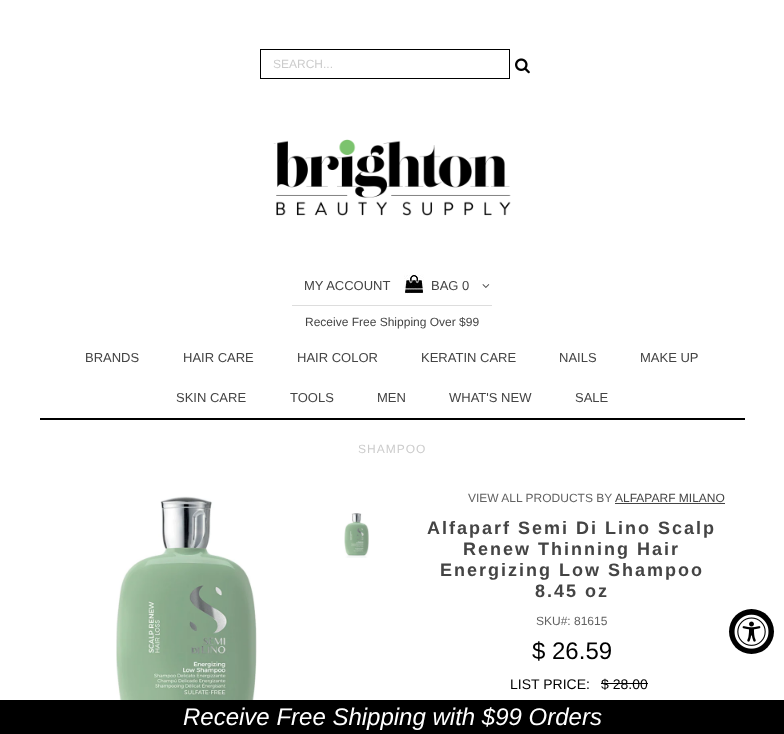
<?xml version="1.0" encoding="UTF-8"?>
<svg xmlns="http://www.w3.org/2000/svg" xmlns:xlink="http://www.w3.org/1999/xlink" width="784" height="734">
  <rect width="100%" height="100%" fill="#ffffff" />
  <rect x="260.5" y="49.5" width="249" height="29" fill="none" stroke="#000000" />
  <image x="515" y="58" width="15" height="16" xlink:href="image1.png" />
  <image x="273" y="139" width="238" height="77" xlink:href="image2.png" />
  <image x="404" y="274" width="20" height="20" xlink:href="image3.png" />
  <image x="482" y="284" width="8" height="4" xlink:href="image4.png" />
  <rect x="292" y="305" width="200" height="1" fill="#dddddd" />
  <rect x="40" y="418" width="705" height="2" fill="#000000" />
  <image x="116" y="496" width="141" height="204" xlink:href="image5.png" />
  <image x="344" y="513" width="25" height="45" xlink:href="image6.png" />
  <rect x="615" y="503" width="110" height="1" fill="#444444" />
  <rect x="601" y="683" width="47" height="1" fill="#000000" />
  <rect y="700" width="784" height="34" fill="#000000" />
  <circle cx="751.5" cy="631.5" r="22.5" fill="#000000" />
  <image x="734" y="614" width="35" height="35" xlink:href="image7.png" />
  <text x="273" y="68" style="font-family: Liberation Sans; font-size: 12px; fill: #cccccc">SEARCH...</text>
  <text x="304" y="290" style="font-family: Liberation Sans; font-size: 13px; fill: #444444">MY ACCOUNT</text>
  <text x="431" y="290" style="font-family: Liberation Sans; font-size: 13px; fill: #444444">BAG 0</text>
  <text x="305" y="326" style="font-family: Liberation Sans; font-size: 12px; fill: #444444">Receive Free Shipping Over $99</text>
  <text x="85" y="362" style="font-family: Liberation Sans; font-size: 13px; fill: #444444">BRANDS</text>
  <text x="183" y="362" style="font-family: Liberation Sans; font-size: 13px; fill: #444444">HAIR CARE</text>
  <text x="297" y="362" style="font-family: Liberation Sans; font-size: 13px; fill: #444444">HAIR COLOR</text>
  <text x="421" y="362" style="font-family: Liberation Sans; font-size: 13px; fill: #444444">KERATIN CARE</text>
  <text x="559" y="362" style="font-family: Liberation Sans; font-size: 13px; fill: #444444">NAILS</text>
  <text x="640" y="362" style="font-family: Liberation Sans; font-size: 13px; fill: #444444">MAKE UP</text>
  <text x="176" y="402" style="font-family: Liberation Sans; font-size: 13px; fill: #444444">SKIN CARE</text>
  <text x="290" y="402" style="font-family: Liberation Sans; font-size: 13px; fill: #444444">TOOLS</text>
  <text x="377" y="402" style="font-family: Liberation Sans; font-size: 13px; fill: #444444">MEN</text>
  <text x="449" y="402" style="font-family: Liberation Sans; font-size: 13px; fill: #444444">WHAT'S NEW</text>
  <text x="575" y="402" style="font-family: Liberation Sans; font-size: 13px; fill: #444444">SALE</text>
  <text x="358" y="453" style="font-family: Liberation Sans; font-size: 12px; letter-spacing: 1px; fill: #cccccc">SHAMPOO</text>
  <text x="468" y="502" style="font-family: Liberation Sans; font-size: 12px; fill: #626262">VIEW ALL PRODUCTS BY</text>
  <text x="615" y="502" style="font-family: Liberation Sans; font-size: 12px; fill: #444444">ALFAPARF MILANO</text>
  <text x="427" y="534" style="font-family: Liberation Sans; font-size: 18px; font-weight: bold; letter-spacing: 2px; fill: #444444">Alfaparf Semi Di Lino Scalp</text>
  <text x="463" y="555" style="font-family: Liberation Sans; font-size: 18px; font-weight: bold; letter-spacing: 2px; fill: #444444">Renew Thinning Hair</text>
  <text x="440" y="576" style="font-family: Liberation Sans; font-size: 18px; font-weight: bold; letter-spacing: 2px; fill: #444444">Energizing Low Shampoo</text>
  <text x="535" y="597" style="font-family: Liberation Sans; font-size: 18px; font-weight: bold; letter-spacing: 2px; fill: #444444">8.45 oz</text>
  <text x="536" y="625" style="font-family: Liberation Sans; font-size: 12px; fill: #626262">SKU#: 81615</text>
  <text x="532" y="659" style="font-family: Liberation Sans; font-size: 24px; fill: #000000">$ 26.59</text>
  <text x="510" y="689" style="font-family: Liberation Sans; font-size: 14px; fill: #000000">LIST PRICE:</text>
  <text x="601" y="689" style="font-family: Liberation Sans; font-size: 14px; fill: #000000">$ 28.00</text>
  <text x="183" y="725" style="font-family: Liberation Sans; font-size: 24px; font-style: italic; fill: #ffffff">Receive Free Shipping with $99 Orders</text>
</svg>
